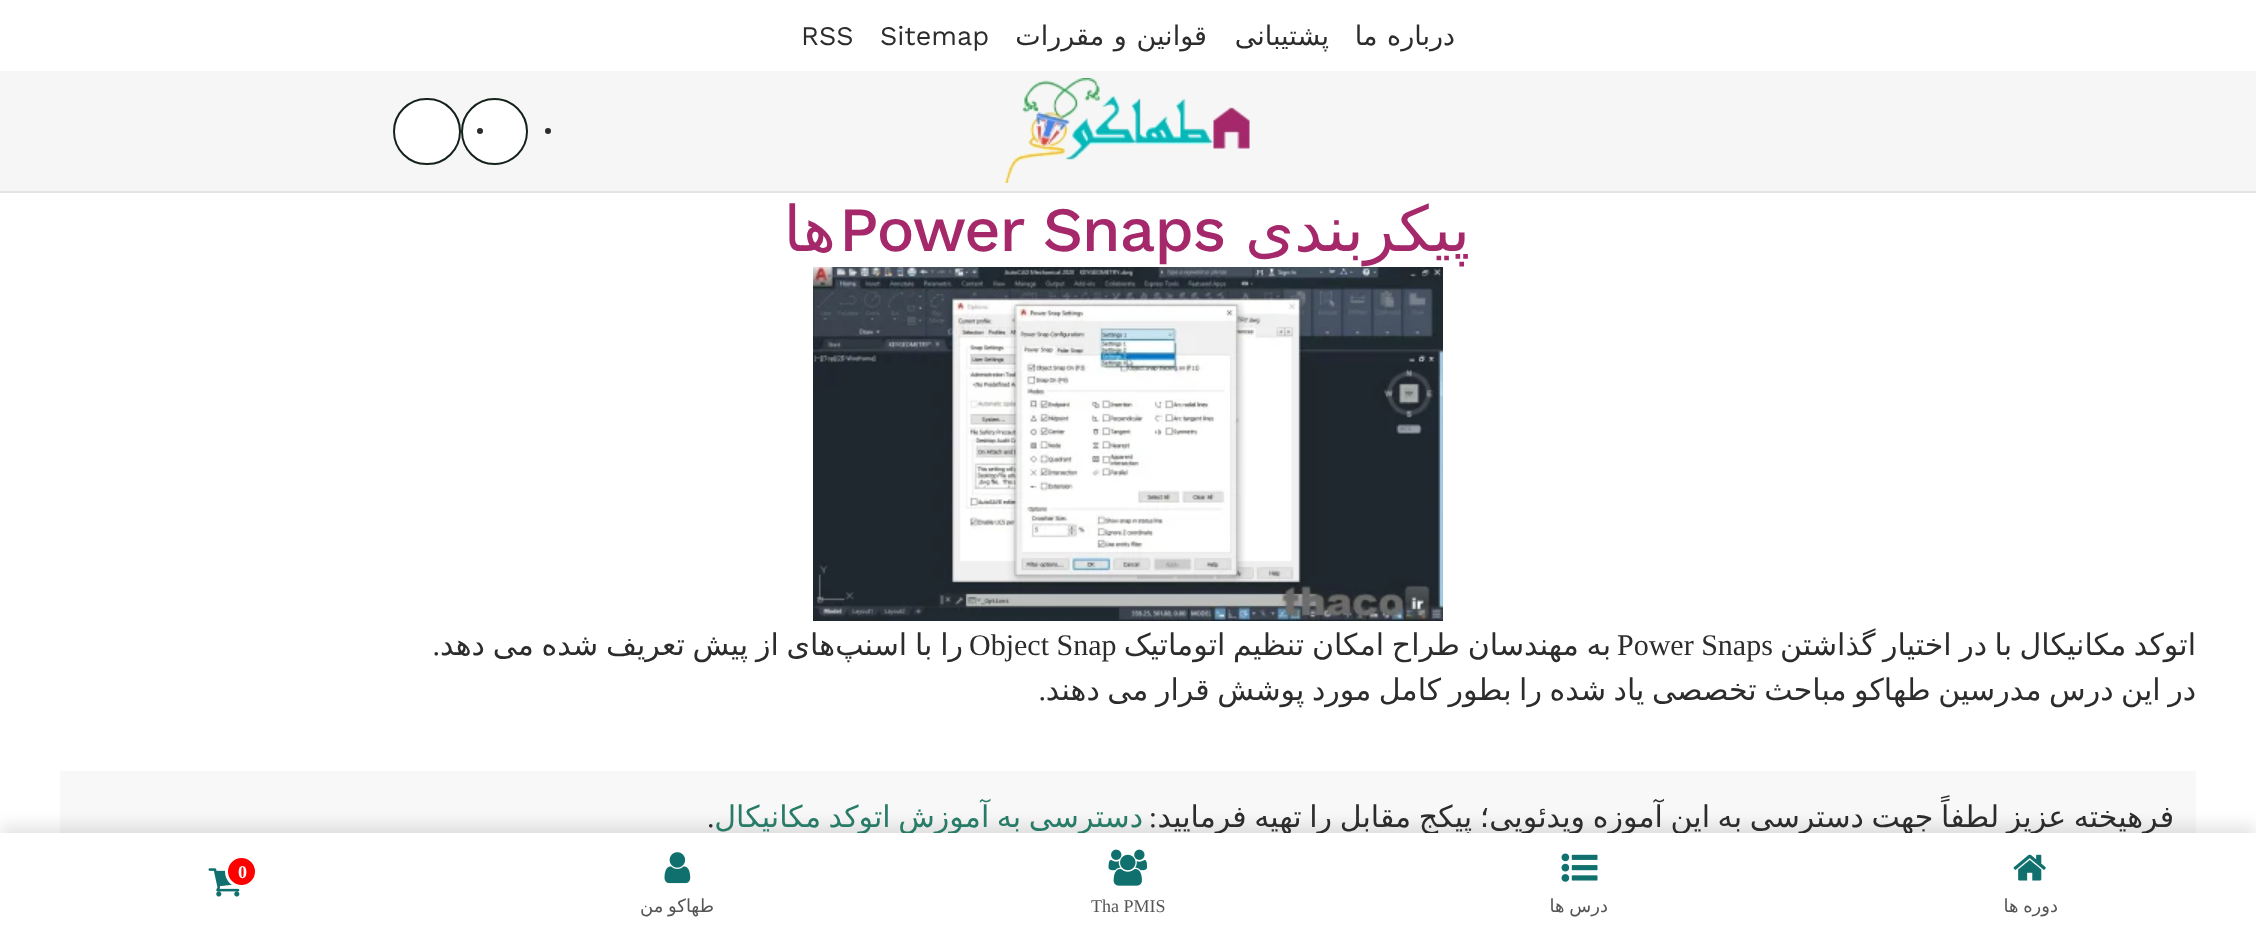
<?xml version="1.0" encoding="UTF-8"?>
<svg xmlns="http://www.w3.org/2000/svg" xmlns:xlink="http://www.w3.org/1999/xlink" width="2256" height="936">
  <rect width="100%" height="100%" fill="#ffffff" />
  <rect y="71" width="2256" height="120" fill="#f6f6f6" />
  <rect y="191" width="2256" height="2" fill="#e3e3e3" />
  <image x="1005" y="78" width="245" height="105" xlink:href="image1.png" />
  <circle cx="548" cy="131" r="3" fill="#2c2c2c" />
  <circle cx="494.5" cy="131.5" r="32.5" fill="#ffffff" stroke="#15221a" stroke-width="2" />
  <circle cx="480" cy="131" r="3" fill="#2c2c2c" />
  <rect x="394" y="99" width="66" height="65" rx="32.5" fill="#ffffff" stroke="#15221a" stroke-width="2" />
  <image x="813" y="267" width="630" height="354" xlink:href="image2.png" />
  <rect x="60" y="771" width="2136" height="62" fill="#f8f8f8" />
  <rect y="825" width="2256" height="104" fill="#000000" fill-opacity="0.1" filter="blur(7.5px)" />
  <text x="1455" y="45" word-spacing="1" style="font-family: DejaVu Sans; font-size: 27px; direction: rtl; fill: #2c2c2c">درباره ما</text>
  <text x="1329" y="45" style="font-family: DejaVu Sans; font-size: 27px; direction: rtl; fill: #2c2c2c">پشتیبانی</text>
  <text x="1207" y="45" word-spacing="1" style="font-family: DejaVu Sans; font-size: 27px; direction: rtl; fill: #2c2c2c">قوانین و مقررات</text>
  <text x="880" y="45" style="font-family: Work Sans; font-size: 27px; fill: #2c2c2c">Sitemap</text>
  <text x="801" y="45" style="font-family: Work Sans; font-size: 27px; fill: #2c2c2c">RSS</text>
  <text x="1470" y="251" style="font-family: DejaVu Sans; font-size: 63px; letter-spacing: -1.1px; direction: rtl; fill: #a4286a">پیکربندی</text>
  <text x="839" y="251" style="font-family: Work Sans; font-size: 63px; font-weight: 500; letter-spacing: -1.1px; fill: #a4286a">Power Snaps</text>
  <text x="836" y="251" style="font-family: DejaVu Sans; font-size: 63px; letter-spacing: -1.1px; direction: rtl; fill: #a4286a">ها</text>
  <text x="2196" y="655" word-spacing="-2" style="font-family: DejaVu Sans; font-size: 30px; direction: rtl; fill: #2c2c2c">اتوکد مکانیکال با در اختیار گذاشتن</text>
  <text x="1611" y="655" word-spacing="-1.75" style="font-family: DejaVu Sans; font-size: 30px; direction: rtl; fill: #2c2c2c">به مهندسان طراح امکان تنظیم اتوماتیک</text>
  <text x="1617" y="655" style="font-family: Liberation Serif; font-size: 30px; fill: #2c2c2c">Power Snaps</text>
  <text x="969" y="655" style="font-family: Liberation Serif; font-size: 30px; fill: #2c2c2c">Object Snap</text>
  <text x="835" y="655" word-spacing="-1.75" style="font-family: DejaVu Sans; font-size: 30px; direction: rtl; fill: #2c2c2c">های از پیش تعریف شده می دهد</text>
  <text x="963" y="655" word-spacing="-1.75" style="font-family: DejaVu Sans; font-size: 30px; direction: rtl; fill: #2c2c2c">را با اسنپ</text>
  <text x="440" y="655" style="font-family: Liberation Serif; font-size: 30px; direction: rtl; fill: #2c2c2c">.</text>
  <text x="2196" y="700" word-spacing="-2" style="font-family: DejaVu Sans; font-size: 30px; direction: rtl; fill: #2c2c2c">در این درس مدرسین طهاکو مباحث تخصصی یاد شده را بطور کامل مورد پوشش قرار می دهند</text>
  <text x="1046" y="700" style="font-family: Liberation Serif; font-size: 30px; direction: rtl; fill: #2c2c2c">.</text>
  <text x="2174" y="827" word-spacing="-1.9" style="font-family: DejaVu Sans; font-size: 30px; direction: rtl; fill: #2c2c2c">فرهیخته عزیز لطفاً جهت دسترسی به این آموزه ویدئویی؛ پیکج مقابل را تهیه فرمایید</text>
  <text x="1157" y="827" style="font-family: Liberation Serif; font-size: 30px; direction: rtl; fill: #2c2c2c">:</text>
  <text x="1143" y="827" word-spacing="-2" style="font-family: DejaVu Sans; font-size: 30px; direction: rtl; fill: #277b67">دسترسی به آموزش اتوکد مکانیکال</text>
  <text x="707" y="827" style="font-family: Liberation Serif; font-size: 30px; fill: #2c2c2c">.</text>
  <rect y="833" width="2256" height="103" fill="#ffffff" />
  <image x="208" y="868" width="32" height="29" xlink:href="image3.png" />
  <circle cx="241.5" cy="871.5" r="15" fill="#ff0000" stroke="#ffffff" stroke-width="3" />
  <text x="238" y="878" style="font-family: Liberation Serif; font-size: 18px; font-weight: bold; fill: #ffffff">0</text>
  <image x="2013" y="854" width="33" height="27" xlink:href="image4.png" />
  <text x="2058" y="912" word-spacing="-1" style="font-family: DejaVu Sans; font-size: 18px; direction: rtl; fill: #555555">دوره ها</text>
  <image x="1561" y="853" width="37" height="29" xlink:href="image5.png" />
  <text x="1608" y="912" word-spacing="-1" style="font-family: DejaVu Sans; font-size: 18px; direction: rtl; fill: #555555">درس ها</text>
  <image x="1108" y="849" width="40" height="37" xlink:href="image6.png" />
  <text x="1091" y="912" style="font-family: Liberation Serif; font-size: 18px; fill: #555555">Tha PMIS</text>
  <image x="664" y="852" width="27" height="32" xlink:href="image7.png" />
  <text x="714" y="912" word-spacing="-1" style="font-family: DejaVu Sans; font-size: 18px; direction: rtl; fill: #555555">طهاکو من</text>
</svg>
